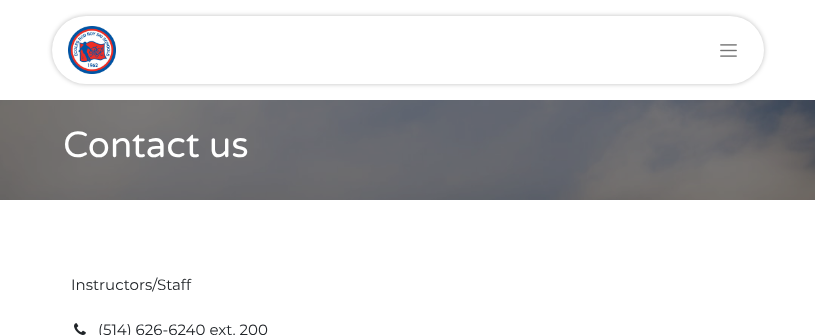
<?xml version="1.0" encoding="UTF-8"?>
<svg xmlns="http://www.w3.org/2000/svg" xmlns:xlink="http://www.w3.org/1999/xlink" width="815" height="335">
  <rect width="100%" height="100%" fill="#ffffff" />
  <rect x="52" y="16" width="712" height="68" rx="34" fill="#000000" fill-opacity="0.25" filter="blur(2.5px)" />
  <rect x="52" y="16" width="712" height="68" rx="34" fill="#ffffff" />
  <image x="68" y="26" width="48" height="48" xlink:href="image1.png" />
  <image x="720" y="44" width="17" height="13" xlink:href="image2.png" />
  <image x="0" y="100" width="815" height="100" xlink:href="image3.png" />
  <image x="74" y="323" width="12" height="12" xlink:href="image4.png" />
  <text x="63" y="157" style="font-family: Varela Round; font-size: 36.5px; fill: #ffffff">Contact us</text>
  <text x="71" y="290" style="font-family: Montserrat; font-size: 15px; fill: #212529">Instructors/Staff</text>
  <text x="98" y="335" style="font-family: Montserrat; font-size: 15px; fill: #212529">(514) 626-6240 ext. 200</text>
</svg>
